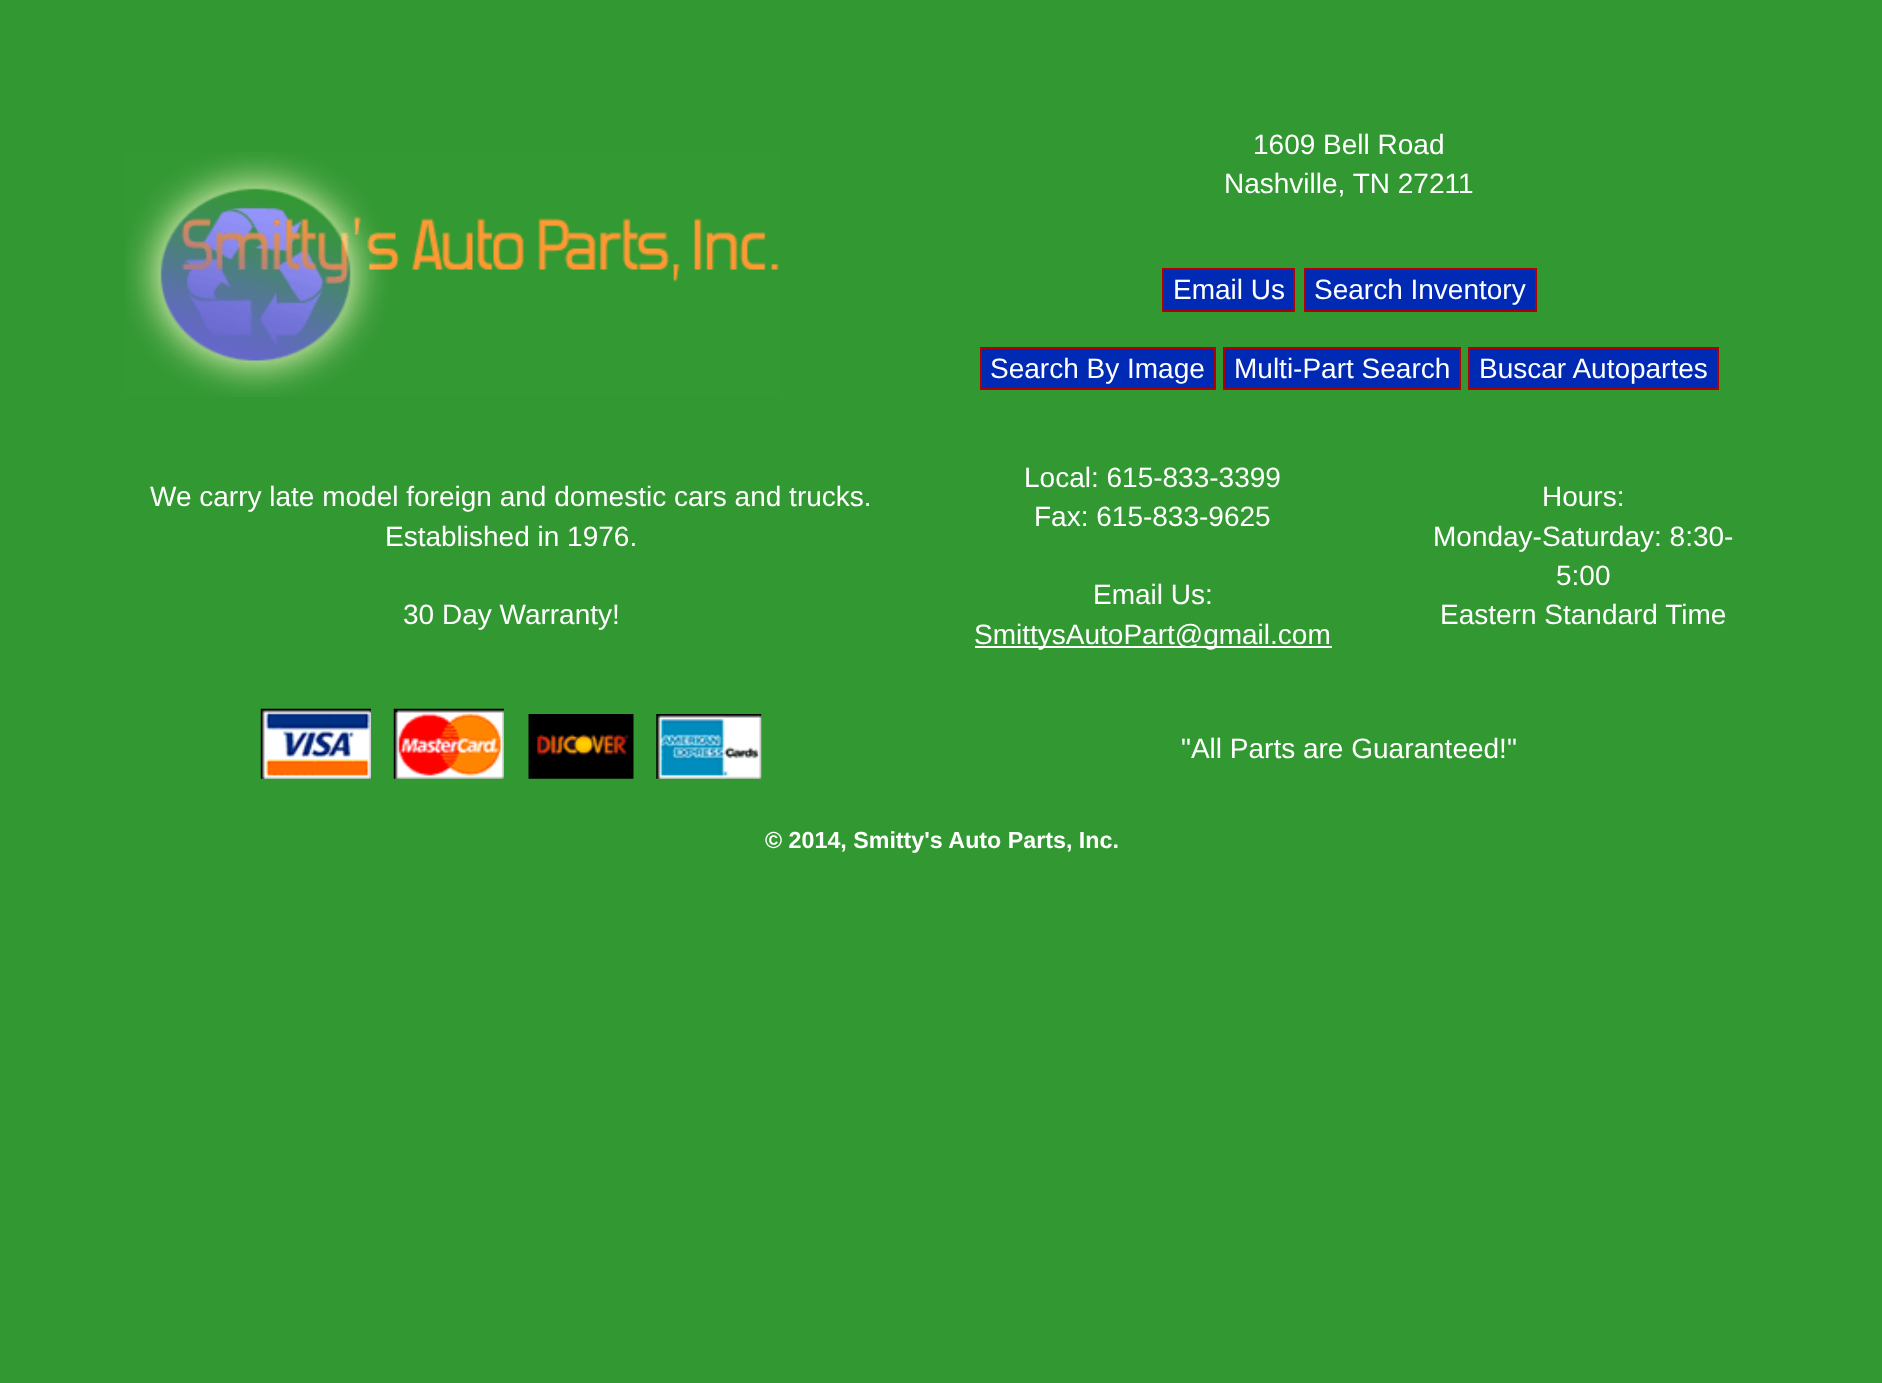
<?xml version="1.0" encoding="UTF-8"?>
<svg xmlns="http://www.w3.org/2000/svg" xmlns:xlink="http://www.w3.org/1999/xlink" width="1882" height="1383">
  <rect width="100%" height="100%" fill="#329932" />
  <image x="125" y="152" width="655" height="245" xlink:href="image1.png" />
  <rect x="1163" y="269" width="131" height="42" fill="#002ab3" stroke="#b10002" stroke-width="2" />
  <rect x="1305" y="269" width="231" height="42" fill="#002ab3" stroke="#b10002" stroke-width="2" />
  <rect x="981" y="348" width="234" height="41" fill="#002ab3" stroke="#b10002" stroke-width="2" />
  <rect x="1224" y="348" width="236" height="41" fill="#002ab3" stroke="#b10002" stroke-width="2" />
  <rect x="1469" y="348" width="249" height="41" fill="#002ab3" stroke="#b10002" stroke-width="2" />
  <rect x="975" y="646" width="357" height="2" fill="#ffffff" />
  <image x="260" y="708" width="111" height="71" xlink:href="image2.png" />
  <image x="393" y="708" width="111" height="71" xlink:href="image3.png" />
  <image x="528" y="714" width="106" height="65" xlink:href="image4.png" />
  <image x="656" y="714" width="106" height="65" xlink:href="image5.png" />
  <text x="1253" y="154" style="font-family: Liberation Sans; font-size: 28px; fill: #ffffff">1609 Bell Road</text>
  <text x="1224" y="193" style="font-family: Liberation Sans; font-size: 28px; fill: #ffffff">Nashville, TN 27211</text>
  <text x="1173" y="299" style="font-family: Liberation Sans; font-size: 28px; fill: #ffffff">Email Us</text>
  <text x="1314" y="299" style="font-family: Liberation Sans; font-size: 28px; fill: #ffffff">Search Inventory</text>
  <text x="990" y="378" style="font-family: Liberation Sans; font-size: 28px; fill: #ffffff">Search By Image</text>
  <text x="1234" y="378" style="font-family: Liberation Sans; font-size: 28px; fill: #ffffff">Multi-Part Search</text>
  <text x="1479" y="378" style="font-family: Liberation Sans; font-size: 28px; fill: #ffffff">Buscar Autopartes</text>
  <text x="150" y="506" style="font-family: Liberation Sans; font-size: 28px; fill: #ffffff">We carry late model foreign and domestic cars and trucks.</text>
  <text x="385" y="546" style="font-family: Liberation Sans; font-size: 28px; fill: #ffffff">Established in 1976.</text>
  <text x="403" y="624" style="font-family: Liberation Sans; font-size: 28px; fill: #ffffff">30 Day Warranty!</text>
  <text x="1024" y="487" style="font-family: Liberation Sans; font-size: 28px; fill: #ffffff">Local: 615-833-3399</text>
  <text x="1034" y="526" style="font-family: Liberation Sans; font-size: 28px; fill: #ffffff">Fax: 615-833-9625</text>
  <text x="1093" y="604" style="font-family: Liberation Sans; font-size: 28px; fill: #ffffff">Email Us:</text>
  <text x="974" y="644" style="font-family: Liberation Sans; font-size: 28px; fill: #ffffff">SmittysAutoPart@gmail.com</text>
  <text x="1542" y="506" style="font-family: Liberation Sans; font-size: 28px; fill: #ffffff">Hours:</text>
  <text x="1433" y="546" style="font-family: Liberation Sans; font-size: 28px; fill: #ffffff">Monday-Saturday: 8:30-</text>
  <text x="1556" y="585" style="font-family: Liberation Sans; font-size: 28px; fill: #ffffff">5:00</text>
  <text x="1440" y="624" style="font-family: Liberation Sans; font-size: 28px; fill: #ffffff">Eastern Standard Time</text>
  <text x="1181" y="758" style="font-family: Liberation Sans; font-size: 28px; fill: #ffffff">"All Parts are Guaranteed!"</text>
  <text x="765" y="848" style="font-family: Liberation Sans; font-size: 23.25px; font-weight: bold; fill: #ffffff">© 2014, Smitty's Auto Parts, Inc.</text>
</svg>
